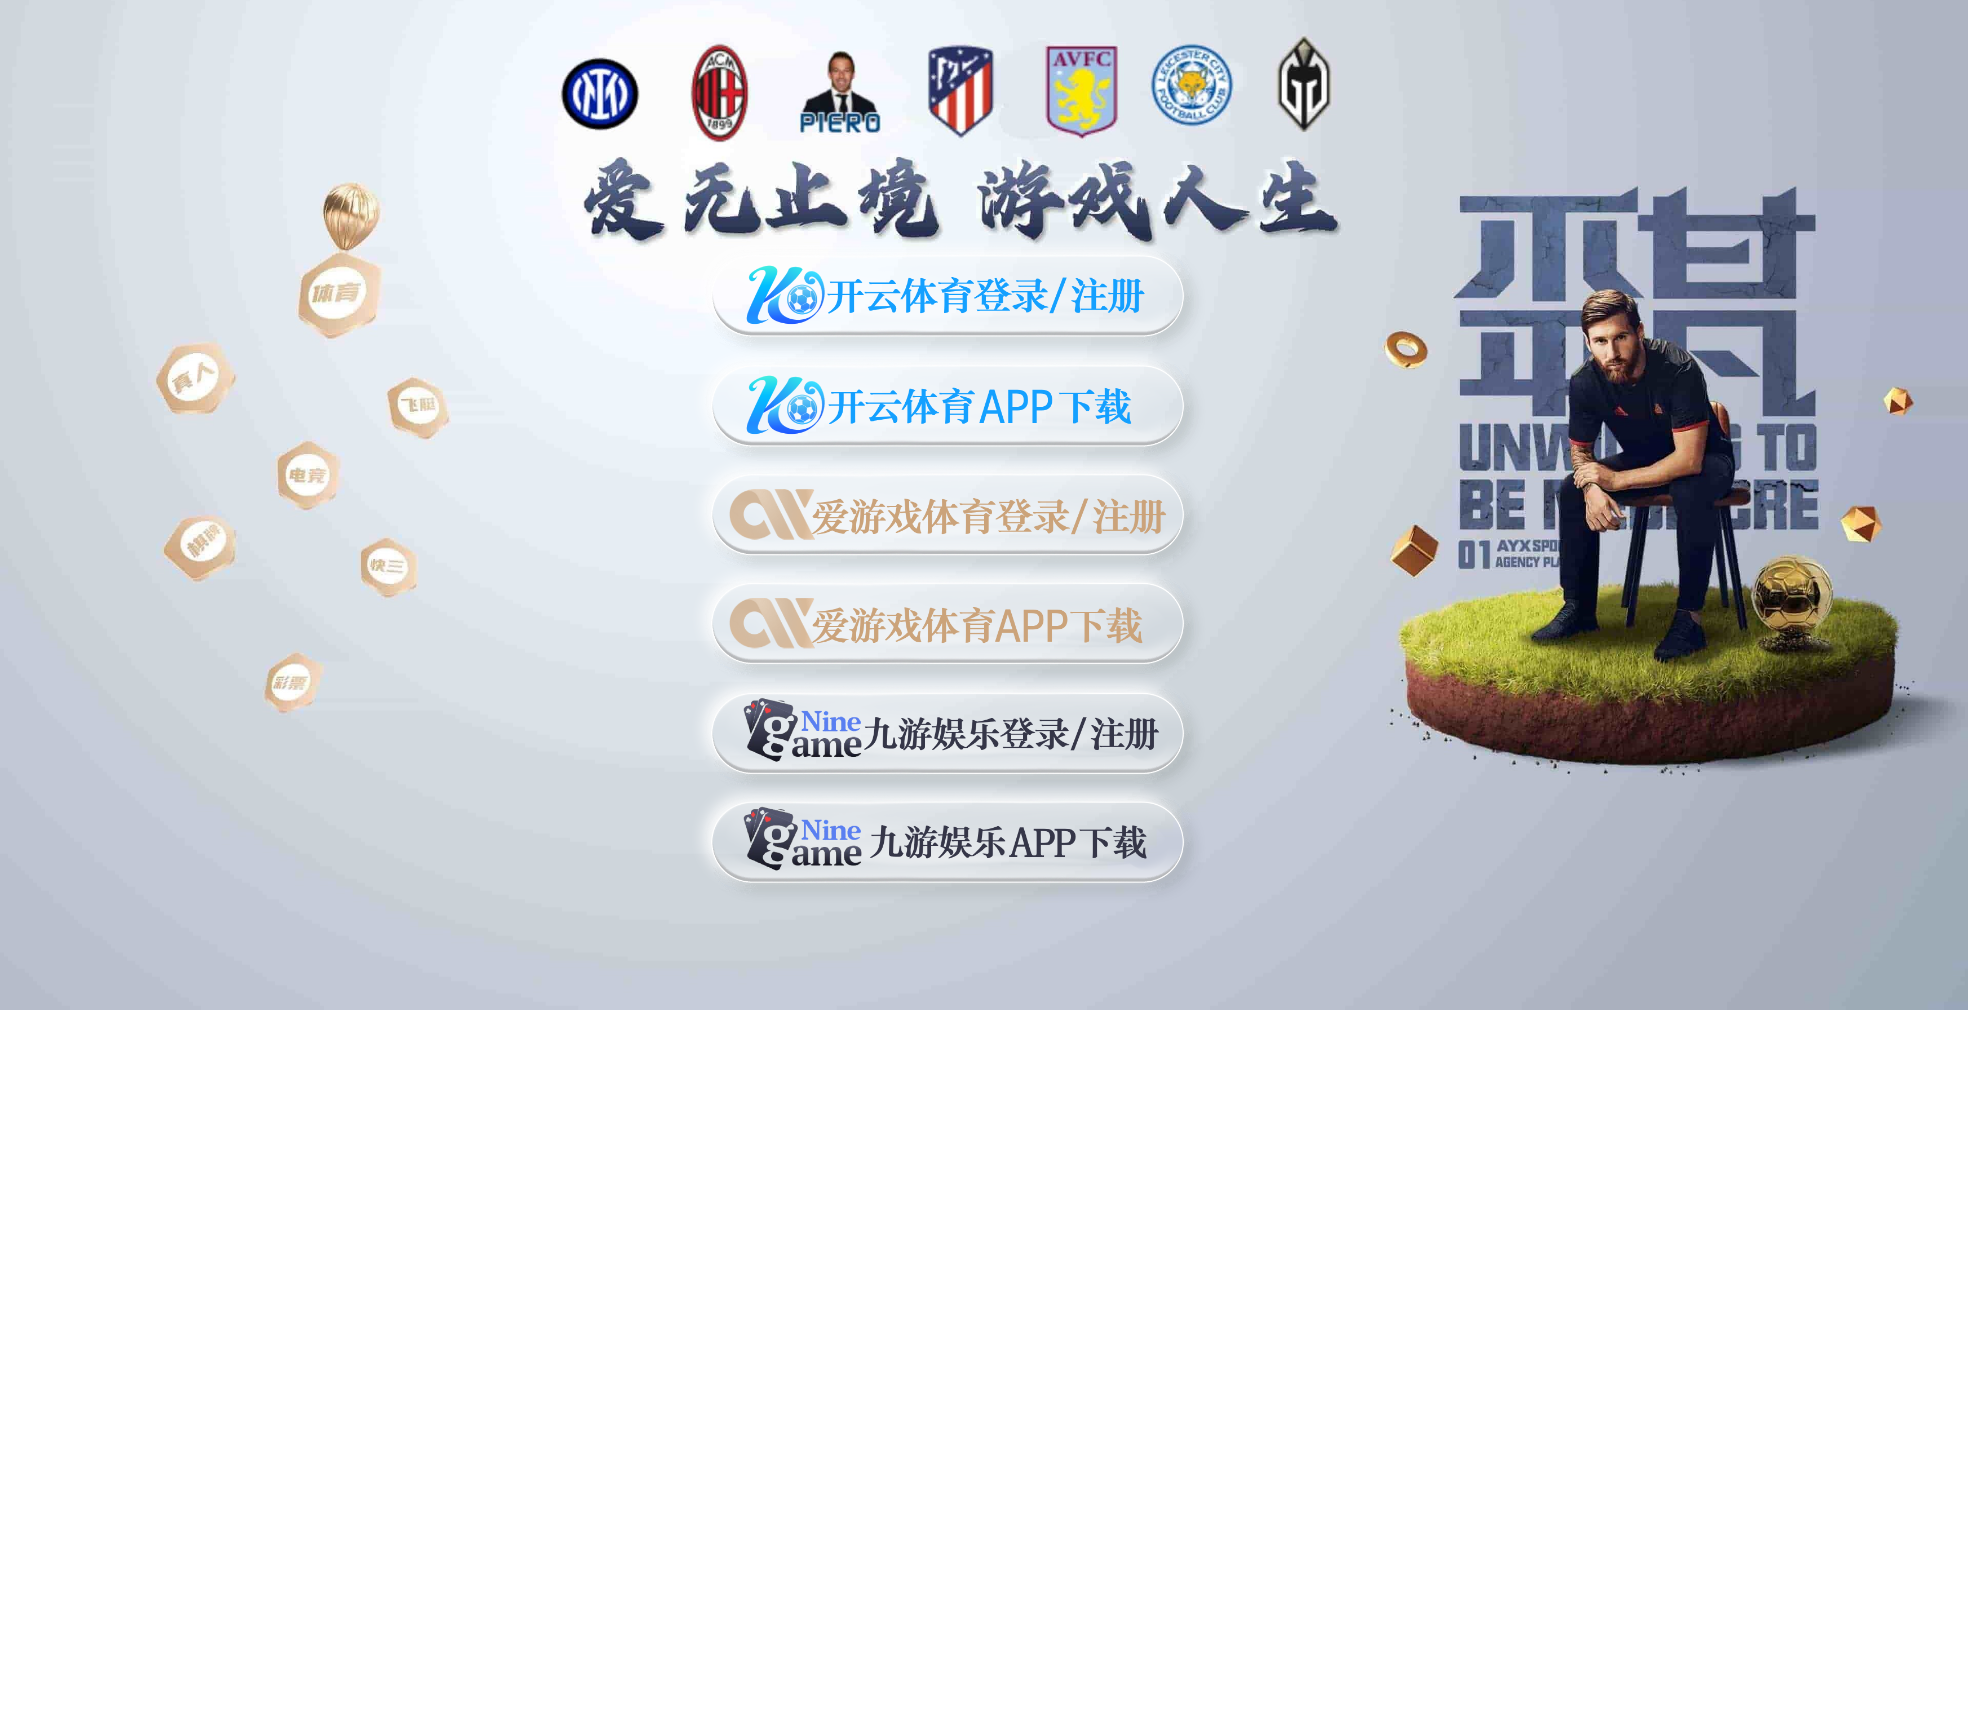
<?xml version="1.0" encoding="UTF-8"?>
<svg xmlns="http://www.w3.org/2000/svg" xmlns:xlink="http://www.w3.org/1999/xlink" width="1968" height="1720">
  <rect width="100%" height="100%" fill="#ffffff" />
  <image x="0" y="0" width="1968" height="1010" xlink:href="image1.png" />
</svg>
